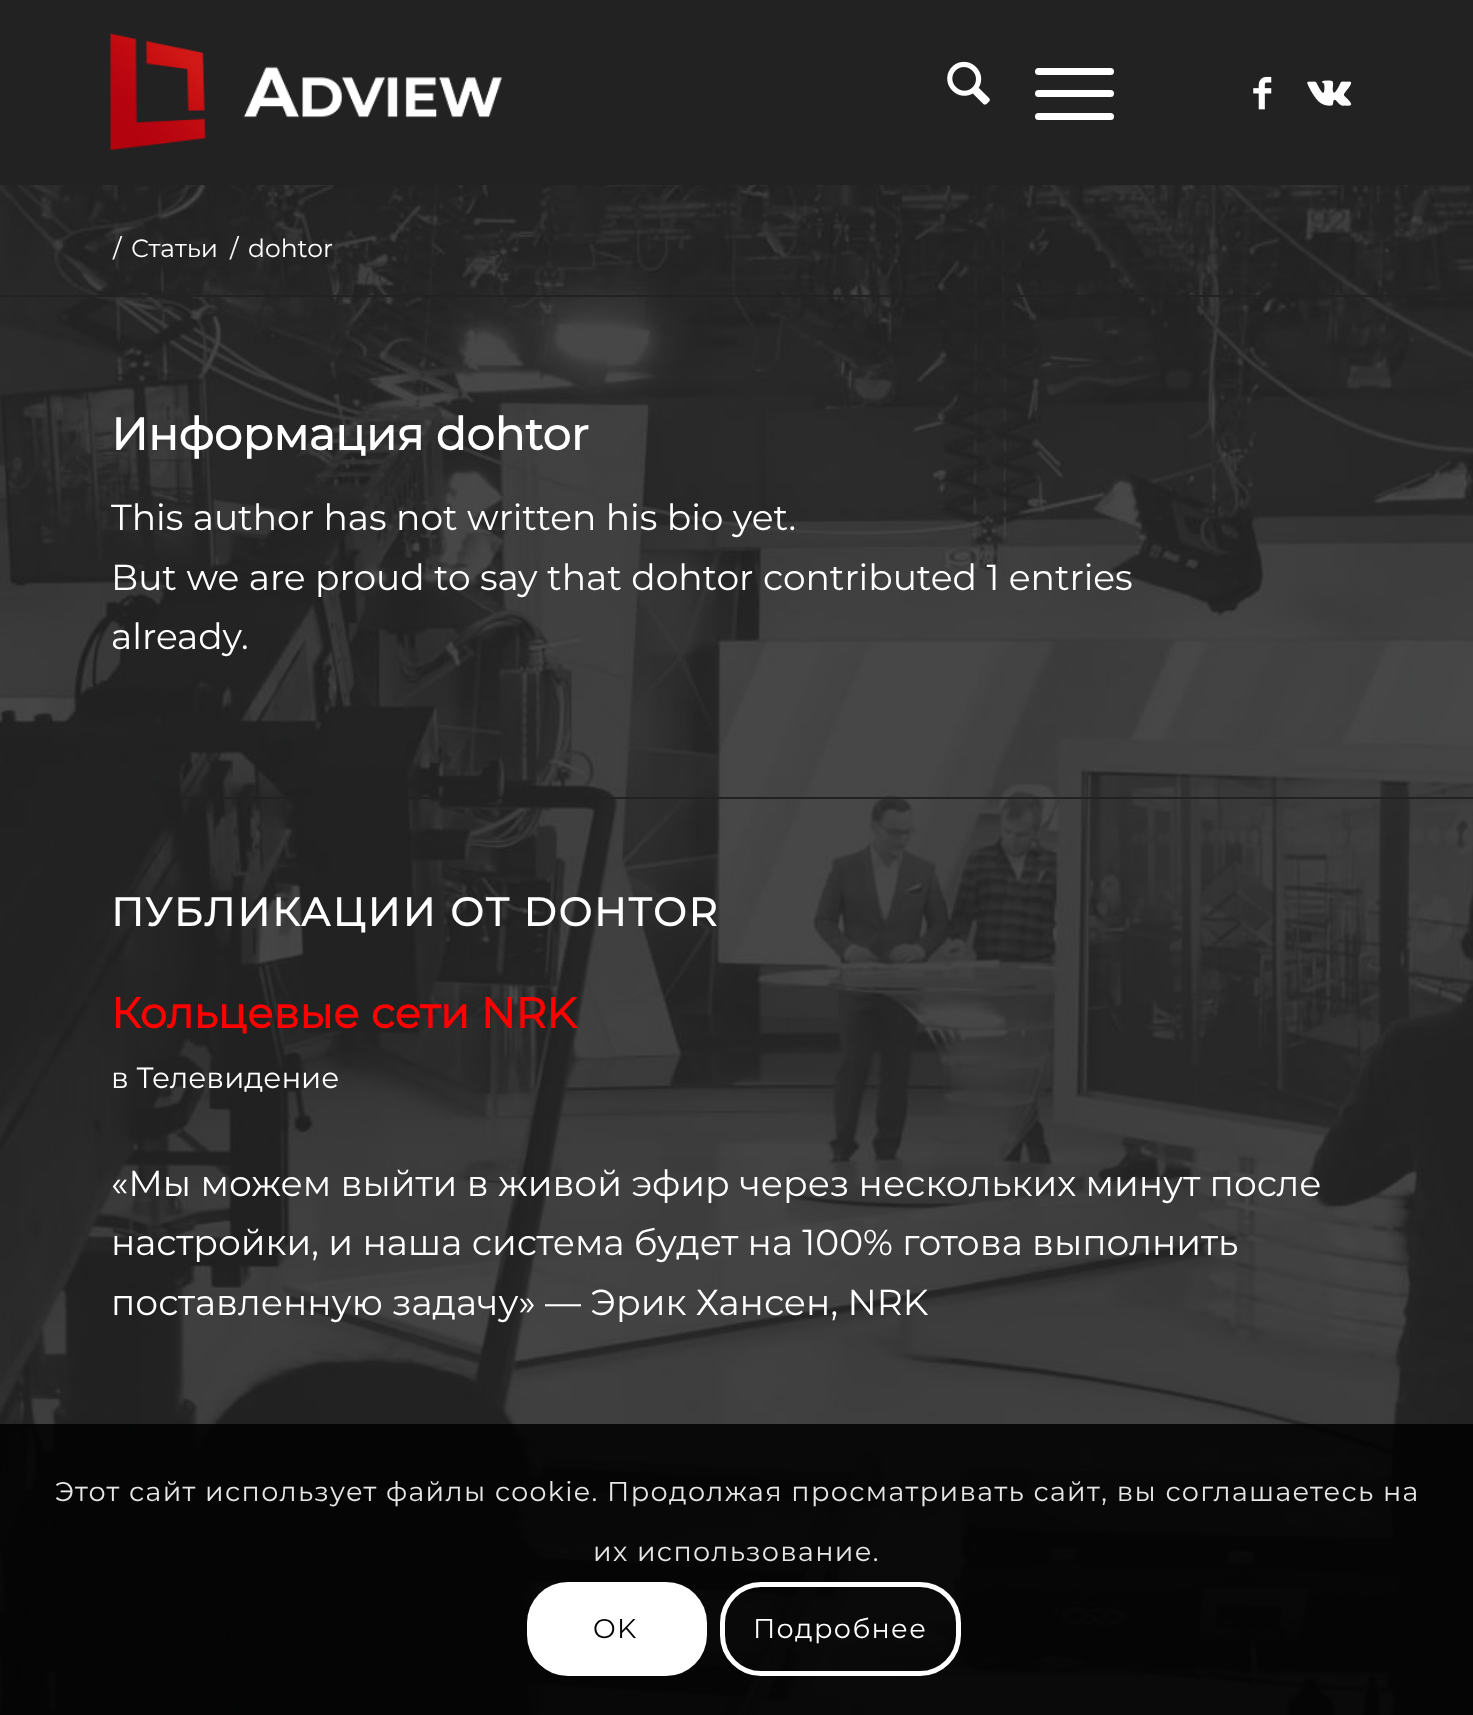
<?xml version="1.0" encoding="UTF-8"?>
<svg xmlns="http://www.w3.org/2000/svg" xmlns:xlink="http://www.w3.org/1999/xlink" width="1473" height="1715">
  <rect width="100%" height="100%" fill="#ffffff" />
  <image x="0" y="185" width="1473" height="1530" xlink:href="image1.png" />
  <rect width="1473" height="185" fill="#222222" />
  <image x="110" y="33" width="392" height="118" xlink:href="image2.png" />
  <image x="947" y="61" width="43" height="44" xlink:href="image3.png" />
  <rect x="1035" y="90" width="79" height="7" rx="3.5" fill="#ffffff" />
  <rect x="1035" y="68" width="79" height="7" rx="3.5" fill="#ffffff" />
  <rect x="1035" y="113" width="79" height="7" rx="3.5" fill="#ffffff" />
  <image x="1253" y="76" width="19" height="34" xlink:href="image4.png" />
  <image x="1307" y="80" width="45" height="26" xlink:href="image5.png" />
  <rect y="295" width="1445" height="2" fill="#222222" />
  <rect x="183" y="797" width="1290" height="2" fill="#222222" />
  <rect y="1424" width="1473" height="291" fill="#000000" fill-opacity="0.85" />
  <rect x="527" y="1582" width="180" height="94" rx="41" fill="#ffffff" />
  <rect x="722.5" y="1584.5" width="236" height="89" rx="38.5" fill="none" stroke="#ffffff" stroke-width="5" />
  <text x="113" y="257" style="font-family: Montserrat; font-size: 25px; font-weight: 100; fill: #ffffff">/</text>
  <text x="131" y="257" style="font-family: Montserrat; font-size: 25px; font-weight: 100; fill: #ffffff">Статьи</text>
  <text x="230" y="257" style="font-family: Montserrat; font-size: 25px; font-weight: 100; fill: #ffffff">/</text>
  <text x="248" y="257" style="font-family: Montserrat; font-size: 25px; font-weight: 100; fill: #ffffff">dohtor</text>
  <text x="111" y="450" style="font-family: Montserrat; font-size: 45px; font-weight: bold; fill: #ffffff">Информация dohtor</text>
  <text x="111" y="530" style="font-family: Montserrat; font-size: 36px; font-weight: 100; fill: #ffffff">This author has not written his bio yet.</text>
  <text x="111" y="590" style="font-family: Montserrat; font-size: 36px; font-weight: 100; fill: #ffffff">But we are proud to say that dohtor contributed 1 entries</text>
  <text x="111" y="649" style="font-family: Montserrat; font-size: 36px; font-weight: 100; fill: #ffffff">already.</text>
  <text x="111" y="926" style="font-family: Montserrat; font-size: 39.6px; font-weight: bold; letter-spacing: 2.25px; fill: #ffffff">ПУБЛИКАЦИИ ОТ DOHTOR</text>
  <text x="111" y="1028" style="font-family: Montserrat; font-size: 42.75px; font-weight: bold; fill: #ff0000">Кольцевые сети NRK</text>
  <text x="111" y="1088" style="font-family: Montserrat; font-size: 29.25px; font-weight: 100; fill: #ffffff">в Телевидение</text>
  <text x="111" y="1196" style="font-family: Montserrat; font-size: 36px; font-weight: 100; fill: #ffffff">«Мы можем выйти в живой эфир через нескольких минут после</text>
  <text x="111" y="1255" style="font-family: Montserrat; font-size: 36px; font-weight: 100; fill: #ffffff">настройки, и наша система будет на 100% готова выполнить</text>
  <text x="111" y="1315" style="font-family: Montserrat; font-size: 36px; font-weight: 100; fill: #ffffff">поставленную задачу» — Эрик Хансен, NRK</text>
  <text x="55" y="1501" style="font-family: Montserrat; font-size: 27px; font-weight: 100; letter-spacing: 1.35px; fill: #e6e6e6">Этот сайт использует файлы cookie. Продолжая просматривать сайт, вы соглашаетесь на</text>
  <text x="593" y="1561" style="font-family: Montserrat; font-size: 27px; font-weight: 100; letter-spacing: 1.35px; fill: #e6e6e6">их использование.</text>
  <text x="593" y="1638" style="font-family: Montserrat; font-size: 27px; font-weight: 100; letter-spacing: 1.35px; fill: #000000">OK</text>
  <text x="753" y="1638" style="font-family: Montserrat; font-size: 27px; font-weight: 100; letter-spacing: 1.35px; fill: #ffffff">Подробнее</text>
</svg>
